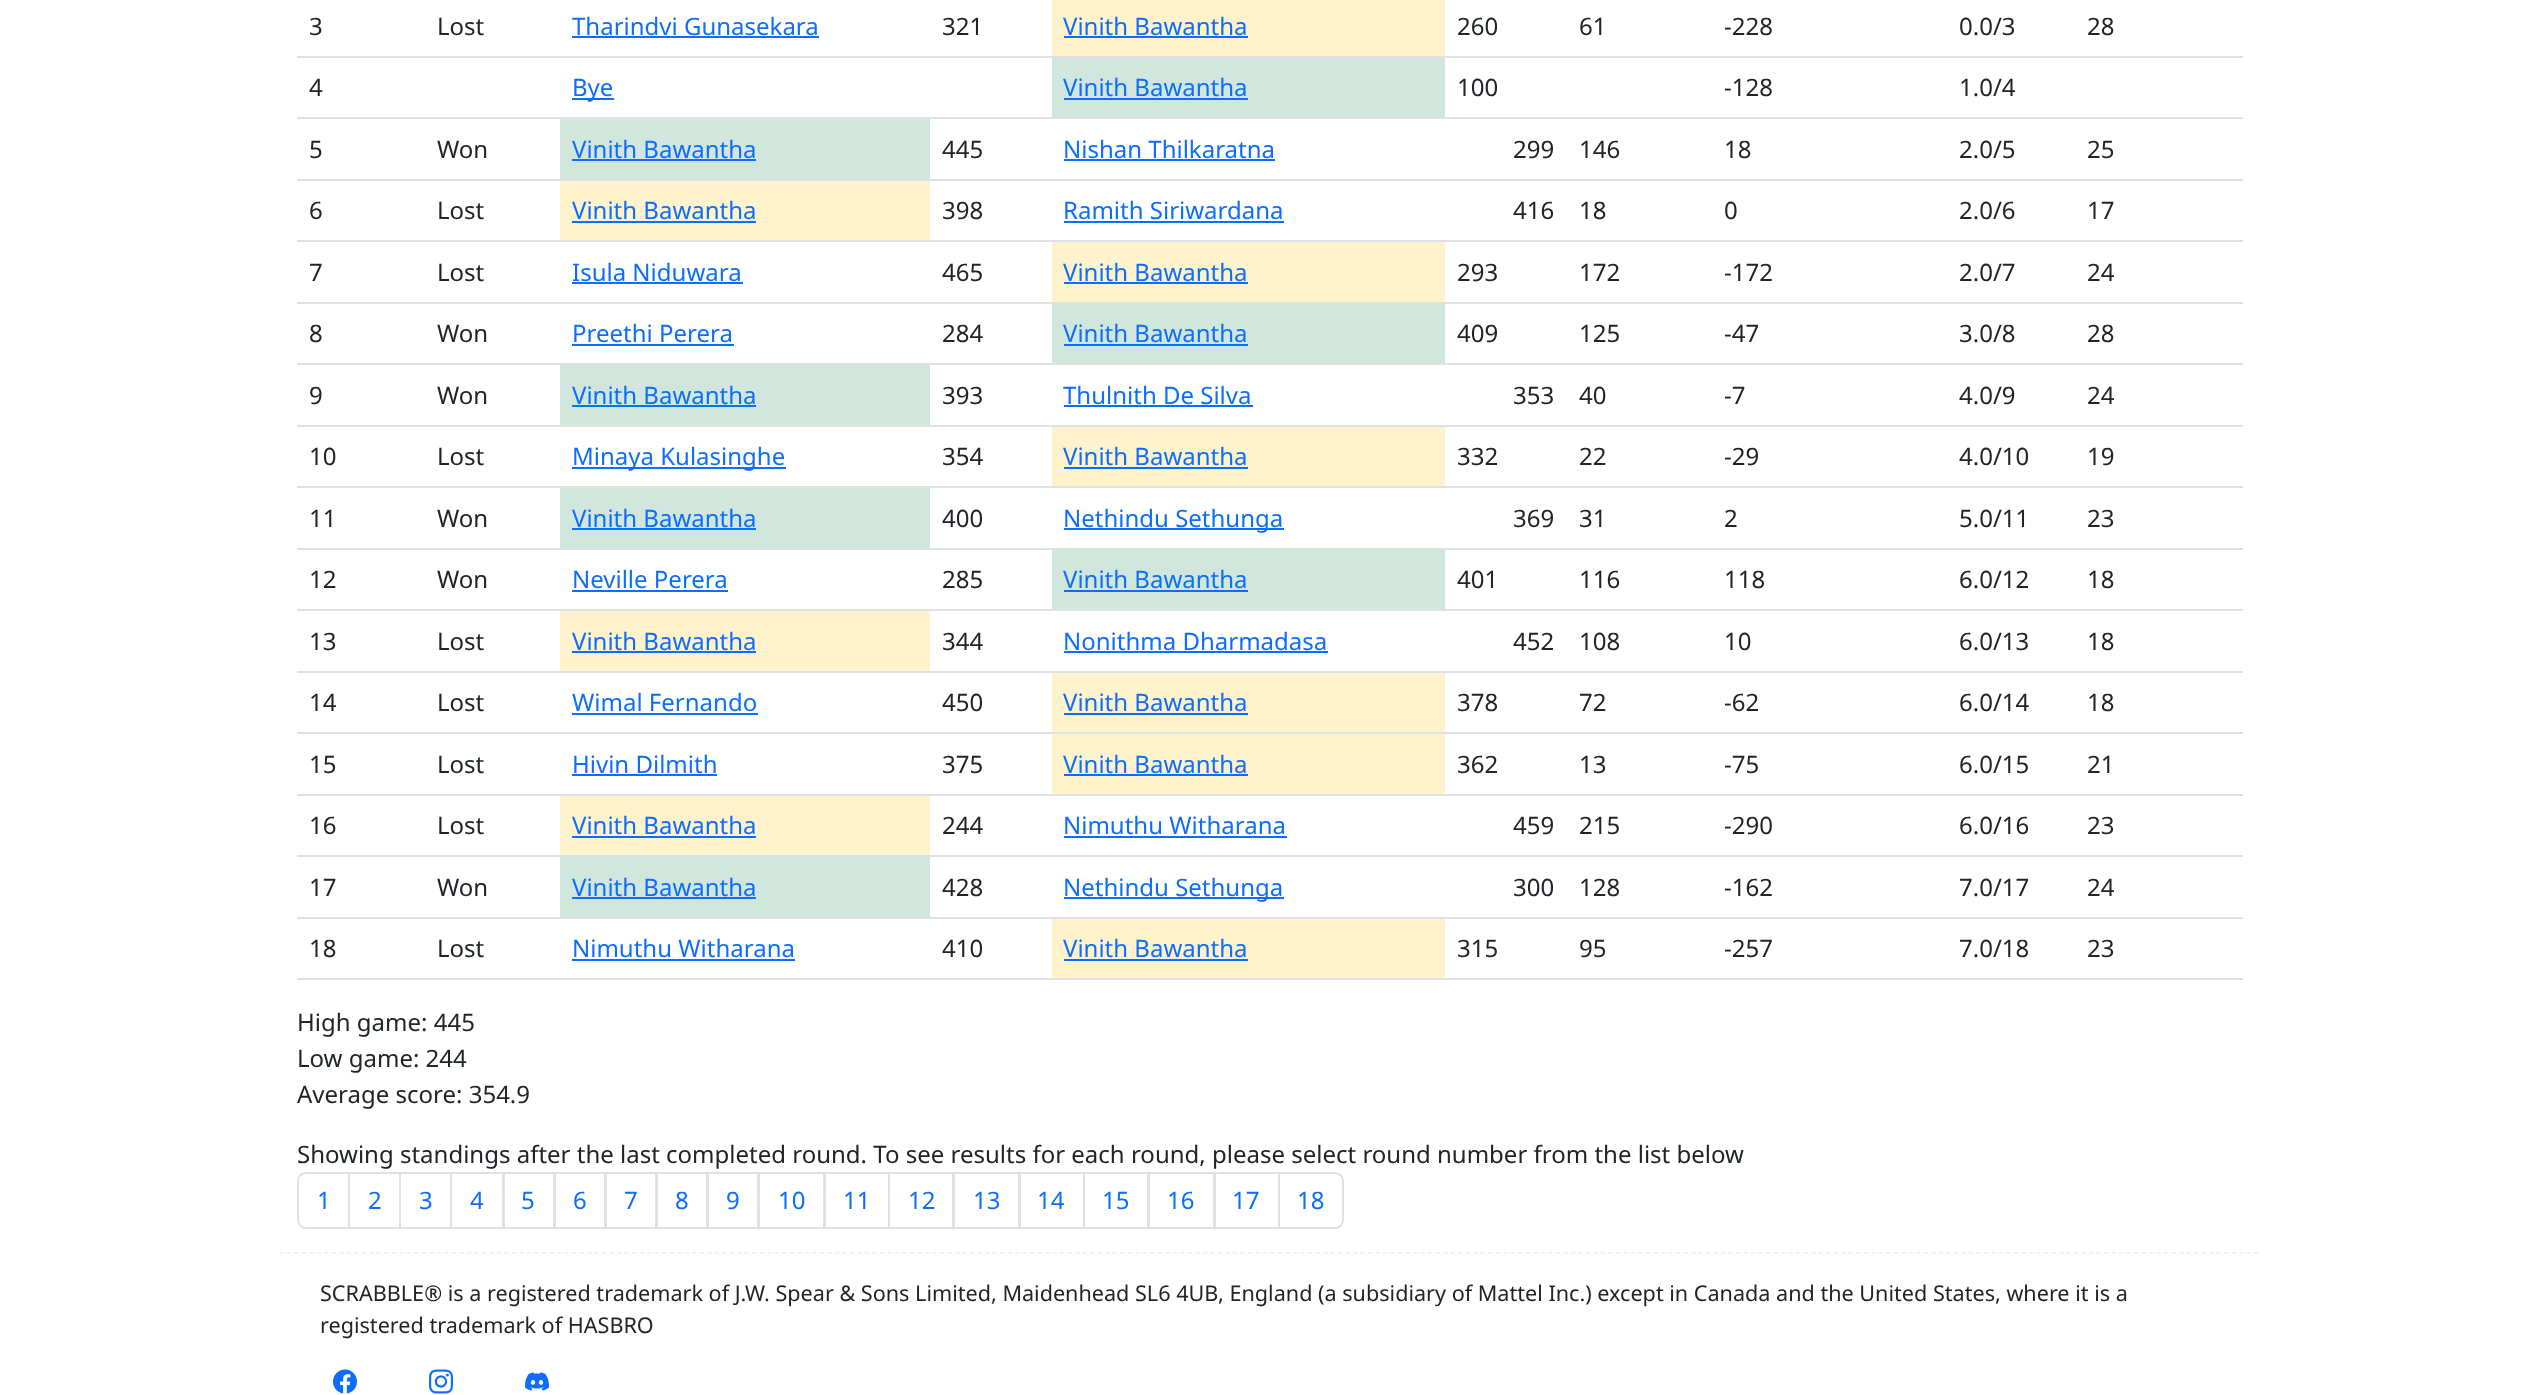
<?xml version="1.0" encoding="UTF-8"?>
<svg xmlns="http://www.w3.org/2000/svg" xmlns:xlink="http://www.w3.org/1999/xlink" width="2537" height="1395">
  <rect width="100%" height="100%" fill="#ffffff" />
  <rect x="572" y="36" width="247" height="2" fill="#0d6efd" />
  <rect x="1052" width="393" height="56" fill="#fff3cd" />
  <rect x="1064" y="36" width="184" height="2" fill="#0d6efd" />
  <rect x="297" y="56" width="1946" height="2" fill="#dee2e6" />
  <rect x="572" y="98" width="42" height="2" fill="#0d6efd" />
  <rect x="1052" y="58" width="393" height="59" fill="#d1e7dd" />
  <rect x="1064" y="98" width="184" height="2" fill="#0d6efd" />
  <rect x="297" y="117" width="1946" height="2" fill="#dee2e6" />
  <rect x="560" y="119" width="370" height="60" fill="#d1e7dd" />
  <rect x="572" y="159" width="184" height="2" fill="#0d6efd" />
  <rect x="1064" y="159" width="211" height="2" fill="#0d6efd" />
  <rect x="297" y="179" width="1946" height="2" fill="#dee2e6" />
  <rect x="560" y="181" width="370" height="59" fill="#fff3cd" />
  <rect x="572" y="221" width="184" height="2" fill="#0d6efd" />
  <rect x="1064" y="221" width="220" height="2" fill="#0d6efd" />
  <rect x="297" y="240" width="1946" height="2" fill="#dee2e6" />
  <rect x="572" y="282" width="171" height="2" fill="#0d6efd" />
  <rect x="1052" y="242" width="393" height="60" fill="#fff3cd" />
  <rect x="1064" y="282" width="184" height="2" fill="#0d6efd" />
  <rect x="297" y="302" width="1946" height="2" fill="#dee2e6" />
  <rect x="572" y="344" width="162" height="2" fill="#0d6efd" />
  <rect x="1052" y="304" width="393" height="59" fill="#d1e7dd" />
  <rect x="1064" y="344" width="184" height="2" fill="#0d6efd" />
  <rect x="297" y="363" width="1946" height="2" fill="#dee2e6" />
  <rect x="560" y="365" width="370" height="60" fill="#d1e7dd" />
  <rect x="572" y="405" width="184" height="2" fill="#0d6efd" />
  <rect x="1064" y="405" width="189" height="2" fill="#0d6efd" />
  <rect x="297" y="425" width="1946" height="2" fill="#dee2e6" />
  <rect x="572" y="467" width="214" height="2" fill="#0d6efd" />
  <rect x="1052" y="427" width="393" height="59" fill="#fff3cd" />
  <rect x="1064" y="467" width="184" height="2" fill="#0d6efd" />
  <rect x="297" y="486" width="1946" height="2" fill="#dee2e6" />
  <rect x="560" y="488" width="370" height="60" fill="#d1e7dd" />
  <rect x="572" y="528" width="184" height="2" fill="#0d6efd" />
  <rect x="1064" y="528" width="220" height="2" fill="#0d6efd" />
  <rect x="297" y="548" width="1946" height="2" fill="#dee2e6" />
  <rect x="572" y="590" width="156" height="2" fill="#0d6efd" />
  <rect x="1052" y="550" width="393" height="59" fill="#d1e7dd" />
  <rect x="1064" y="590" width="184" height="2" fill="#0d6efd" />
  <rect x="297" y="609" width="1946" height="2" fill="#dee2e6" />
  <rect x="560" y="611" width="370" height="60" fill="#fff3cd" />
  <rect x="572" y="651" width="184" height="2" fill="#0d6efd" />
  <rect x="1064" y="651" width="264" height="2" fill="#0d6efd" />
  <rect x="297" y="671" width="1946" height="2" fill="#dee2e6" />
  <rect x="572" y="713" width="186" height="2" fill="#0d6efd" />
  <rect x="1052" y="673" width="393" height="59" fill="#fff3cd" />
  <rect x="1064" y="713" width="184" height="2" fill="#0d6efd" />
  <rect x="297" y="732" width="1946" height="2" fill="#dee2e6" />
  <rect x="572" y="774" width="145" height="2" fill="#0d6efd" />
  <rect x="1052" y="734" width="393" height="60" fill="#fff3cd" />
  <rect x="1064" y="774" width="184" height="2" fill="#0d6efd" />
  <rect x="297" y="794" width="1946" height="2" fill="#dee2e6" />
  <rect x="560" y="796" width="370" height="59" fill="#fff3cd" />
  <rect x="572" y="836" width="184" height="2" fill="#0d6efd" />
  <rect x="1064" y="836" width="223" height="2" fill="#0d6efd" />
  <rect x="297" y="855" width="1946" height="2" fill="#dee2e6" />
  <rect x="560" y="857" width="370" height="60" fill="#d1e7dd" />
  <rect x="572" y="897" width="184" height="2" fill="#0d6efd" />
  <rect x="1064" y="897" width="220" height="2" fill="#0d6efd" />
  <rect x="297" y="917" width="1946" height="2" fill="#dee2e6" />
  <rect x="572" y="959" width="223" height="2" fill="#0d6efd" />
  <rect x="1052" y="919" width="393" height="59" fill="#fff3cd" />
  <rect x="1064" y="959" width="184" height="2" fill="#0d6efd" />
  <rect x="297" y="978" width="1946" height="2" fill="#dee2e6" />
  <path d="M 306 1173 h 43 v 55 h -43 c -4.5 0 -8 -3.5 -8 -8 v -39 c 0 -4.5 3.5 -8 8 -8 z" fill="none" stroke="#dee2e6" stroke-width="2" />
  <rect x="349" y="1173" width="51" height="55" fill="none" stroke="#dee2e6" stroke-width="2" />
  <rect x="400" y="1173" width="51" height="55" fill="none" stroke="#dee2e6" stroke-width="2" />
  <rect x="451" y="1173" width="52" height="55" fill="none" stroke="#dee2e6" stroke-width="2" />
  <rect x="504" y="1173" width="50" height="55" fill="none" stroke="#dee2e6" stroke-width="2" />
  <rect x="555" y="1173" width="50" height="55" fill="none" stroke="#dee2e6" stroke-width="2" />
  <rect x="606" y="1173" width="50" height="55" fill="none" stroke="#dee2e6" stroke-width="2" />
  <rect x="657" y="1173" width="50" height="55" fill="none" stroke="#dee2e6" stroke-width="2" />
  <rect x="708" y="1173" width="50" height="55" fill="none" stroke="#dee2e6" stroke-width="2" />
  <rect x="759" y="1173" width="65" height="55" fill="none" stroke="#dee2e6" stroke-width="2" />
  <rect x="825" y="1173" width="64" height="55" fill="none" stroke="#dee2e6" stroke-width="2" />
  <rect x="889" y="1173" width="64" height="55" fill="none" stroke="#dee2e6" stroke-width="2" />
  <rect x="954" y="1173" width="65" height="55" fill="none" stroke="#dee2e6" stroke-width="2" />
  <rect x="1020" y="1173" width="64" height="55" fill="none" stroke="#dee2e6" stroke-width="2" />
  <rect x="1084" y="1173" width="64" height="55" fill="none" stroke="#dee2e6" stroke-width="2" />
  <rect x="1149" y="1173" width="65" height="55" fill="none" stroke="#dee2e6" stroke-width="2" />
  <rect x="1215" y="1173" width="64" height="55" fill="none" stroke="#dee2e6" stroke-width="2" />
  <path d="M 1279 1173 h 56 c 4.5 0 8 3.5 8 8 v 39 c 0 4.5 -3.5 8 -8 8 h -56 z" fill="#ffffff" stroke="#dee2e6" stroke-width="2" />
  <path d="M 279 1253 h 1980" fill="none" stroke="#eeeeee" stroke-width="1.5" stroke-dasharray="4.5 3.01" />
  <image x="333" y="1369" width="24" height="25" xlink:href="image1.png" />
  <image x="429" y="1369" width="24" height="25" xlink:href="image2.png" />
  <image x="525" y="1372" width="24" height="19" xlink:href="image3.png" />
  <text x="309" y="35" style="font-family: Noto Sans; font-size: 24px; fill: #212529">3</text>
  <text x="437" y="35" style="font-family: Noto Sans; font-size: 24px; fill: #212529">Lost</text>
  <text x="572" y="35" style="font-family: Noto Sans; font-size: 24px; fill: #0d6efd">Tharindvi Gunasekara</text>
  <text x="942" y="35" style="font-family: Noto Sans; font-size: 24px; fill: #212529">321</text>
  <text x="1063" y="35" style="font-family: Noto Sans; font-size: 24px; fill: #0d6efd">Vinith Bawantha</text>
  <text x="1457" y="35" style="font-family: Noto Sans; font-size: 24px; fill: #212529">260</text>
  <text x="1579" y="35" style="font-family: Noto Sans; font-size: 24px; fill: #212529">61</text>
  <text x="1724" y="35" style="font-family: Noto Sans; font-size: 24px; fill: #212529">-228</text>
  <text x="1959" y="35" style="font-family: Noto Sans; font-size: 24px; fill: #212529">0.0/3</text>
  <text x="2087" y="35" style="font-family: Noto Sans; font-size: 24px; fill: #212529">28</text>
  <text x="309" y="96" style="font-family: Noto Sans; font-size: 24px; fill: #212529">4</text>
  <text x="572" y="96" style="font-family: Noto Sans; font-size: 24px; fill: #0d6efd">Bye</text>
  <text x="1063" y="96" style="font-family: Noto Sans; font-size: 24px; fill: #0d6efd">Vinith Bawantha</text>
  <text x="1457" y="96" style="font-family: Noto Sans; font-size: 24px; fill: #212529">100</text>
  <text x="1724" y="96" style="font-family: Noto Sans; font-size: 24px; fill: #212529">-128</text>
  <text x="1959" y="96" style="font-family: Noto Sans; font-size: 24px; fill: #212529">1.0/4</text>
  <text x="309" y="158" style="font-family: Noto Sans; font-size: 24px; fill: #212529">5</text>
  <text x="437" y="158" style="font-family: Noto Sans; font-size: 24px; fill: #212529">Won</text>
  <text x="572" y="158" style="font-family: Noto Sans; font-size: 24px; fill: #0d6efd">Vinith Bawantha</text>
  <text x="942" y="158" style="font-family: Noto Sans; font-size: 24px; fill: #212529">445</text>
  <text x="1063" y="158" style="font-family: Noto Sans; font-size: 24px; fill: #0d6efd">Nishan Thilkaratna</text>
  <text x="1513" y="158" style="font-family: Noto Sans; font-size: 24px; fill: #212529">299</text>
  <text x="1579" y="158" style="font-family: Noto Sans; font-size: 24px; fill: #212529">146</text>
  <text x="1724" y="158" style="font-family: Noto Sans; font-size: 24px; fill: #212529">18</text>
  <text x="1959" y="158" style="font-family: Noto Sans; font-size: 24px; fill: #212529">2.0/5</text>
  <text x="2087" y="158" style="font-family: Noto Sans; font-size: 24px; fill: #212529">25</text>
  <text x="309" y="219" style="font-family: Noto Sans; font-size: 24px; fill: #212529">6</text>
  <text x="437" y="219" style="font-family: Noto Sans; font-size: 24px; fill: #212529">Lost</text>
  <text x="572" y="219" style="font-family: Noto Sans; font-size: 24px; fill: #0d6efd">Vinith Bawantha</text>
  <text x="942" y="219" style="font-family: Noto Sans; font-size: 24px; fill: #212529">398</text>
  <text x="1063" y="219" style="font-family: Noto Sans; font-size: 24px; fill: #0d6efd">Ramith Siriwardana</text>
  <text x="1513" y="219" style="font-family: Noto Sans; font-size: 24px; fill: #212529">416</text>
  <text x="1579" y="219" style="font-family: Noto Sans; font-size: 24px; fill: #212529">18</text>
  <text x="1724" y="219" style="font-family: Noto Sans; font-size: 24px; fill: #212529">0</text>
  <text x="1959" y="219" style="font-family: Noto Sans; font-size: 24px; fill: #212529">2.0/6</text>
  <text x="2087" y="219" style="font-family: Noto Sans; font-size: 24px; fill: #212529">17</text>
  <text x="309" y="281" style="font-family: Noto Sans; font-size: 24px; fill: #212529">7</text>
  <text x="437" y="281" style="font-family: Noto Sans; font-size: 24px; fill: #212529">Lost</text>
  <text x="572" y="281" style="font-family: Noto Sans; font-size: 24px; fill: #0d6efd">Isula Niduwara</text>
  <text x="942" y="281" style="font-family: Noto Sans; font-size: 24px; fill: #212529">465</text>
  <text x="1063" y="281" style="font-family: Noto Sans; font-size: 24px; fill: #0d6efd">Vinith Bawantha</text>
  <text x="1457" y="281" style="font-family: Noto Sans; font-size: 24px; fill: #212529">293</text>
  <text x="1579" y="281" style="font-family: Noto Sans; font-size: 24px; fill: #212529">172</text>
  <text x="1724" y="281" style="font-family: Noto Sans; font-size: 24px; fill: #212529">-172</text>
  <text x="1959" y="281" style="font-family: Noto Sans; font-size: 24px; fill: #212529">2.0/7</text>
  <text x="2087" y="281" style="font-family: Noto Sans; font-size: 24px; fill: #212529">24</text>
  <text x="309" y="342" style="font-family: Noto Sans; font-size: 24px; fill: #212529">8</text>
  <text x="437" y="342" style="font-family: Noto Sans; font-size: 24px; fill: #212529">Won</text>
  <text x="572" y="342" style="font-family: Noto Sans; font-size: 24px; fill: #0d6efd">Preethi Perera</text>
  <text x="942" y="342" style="font-family: Noto Sans; font-size: 24px; fill: #212529">284</text>
  <text x="1063" y="342" style="font-family: Noto Sans; font-size: 24px; fill: #0d6efd">Vinith Bawantha</text>
  <text x="1457" y="342" style="font-family: Noto Sans; font-size: 24px; fill: #212529">409</text>
  <text x="1579" y="342" style="font-family: Noto Sans; font-size: 24px; fill: #212529">125</text>
  <text x="1724" y="342" style="font-family: Noto Sans; font-size: 24px; fill: #212529">-47</text>
  <text x="1959" y="342" style="font-family: Noto Sans; font-size: 24px; fill: #212529">3.0/8</text>
  <text x="2087" y="342" style="font-family: Noto Sans; font-size: 24px; fill: #212529">28</text>
  <text x="309" y="404" style="font-family: Noto Sans; font-size: 24px; fill: #212529">9</text>
  <text x="437" y="404" style="font-family: Noto Sans; font-size: 24px; fill: #212529">Won</text>
  <text x="572" y="404" style="font-family: Noto Sans; font-size: 24px; fill: #0d6efd">Vinith Bawantha</text>
  <text x="942" y="404" style="font-family: Noto Sans; font-size: 24px; fill: #212529">393</text>
  <text x="1063" y="404" style="font-family: Noto Sans; font-size: 24px; fill: #0d6efd">Thulnith De Silva</text>
  <text x="1513" y="404" style="font-family: Noto Sans; font-size: 24px; fill: #212529">353</text>
  <text x="1579" y="404" style="font-family: Noto Sans; font-size: 24px; fill: #212529">40</text>
  <text x="1724" y="404" style="font-family: Noto Sans; font-size: 24px; fill: #212529">-7</text>
  <text x="1959" y="404" style="font-family: Noto Sans; font-size: 24px; fill: #212529">4.0/9</text>
  <text x="2087" y="404" style="font-family: Noto Sans; font-size: 24px; fill: #212529">24</text>
  <text x="309" y="465" style="font-family: Noto Sans; font-size: 24px; fill: #212529">10</text>
  <text x="437" y="465" style="font-family: Noto Sans; font-size: 24px; fill: #212529">Lost</text>
  <text x="572" y="465" style="font-family: Noto Sans; font-size: 24px; fill: #0d6efd">Minaya Kulasinghe</text>
  <text x="942" y="465" style="font-family: Noto Sans; font-size: 24px; fill: #212529">354</text>
  <text x="1063" y="465" style="font-family: Noto Sans; font-size: 24px; fill: #0d6efd">Vinith Bawantha</text>
  <text x="1457" y="465" style="font-family: Noto Sans; font-size: 24px; fill: #212529">332</text>
  <text x="1579" y="465" style="font-family: Noto Sans; font-size: 24px; fill: #212529">22</text>
  <text x="1724" y="465" style="font-family: Noto Sans; font-size: 24px; fill: #212529">-29</text>
  <text x="1959" y="465" style="font-family: Noto Sans; font-size: 24px; fill: #212529">4.0/10</text>
  <text x="2087" y="465" style="font-family: Noto Sans; font-size: 24px; fill: #212529">19</text>
  <text x="309" y="527" style="font-family: Noto Sans; font-size: 24px; fill: #212529">11</text>
  <text x="437" y="527" style="font-family: Noto Sans; font-size: 24px; fill: #212529">Won</text>
  <text x="572" y="527" style="font-family: Noto Sans; font-size: 24px; fill: #0d6efd">Vinith Bawantha</text>
  <text x="942" y="527" style="font-family: Noto Sans; font-size: 24px; fill: #212529">400</text>
  <text x="1063" y="527" style="font-family: Noto Sans; font-size: 24px; fill: #0d6efd">Nethindu Sethunga</text>
  <text x="1513" y="527" style="font-family: Noto Sans; font-size: 24px; fill: #212529">369</text>
  <text x="1579" y="527" style="font-family: Noto Sans; font-size: 24px; fill: #212529">31</text>
  <text x="1724" y="527" style="font-family: Noto Sans; font-size: 24px; fill: #212529">2</text>
  <text x="1959" y="527" style="font-family: Noto Sans; font-size: 24px; fill: #212529">5.0/11</text>
  <text x="2087" y="527" style="font-family: Noto Sans; font-size: 24px; fill: #212529">23</text>
  <text x="309" y="588" style="font-family: Noto Sans; font-size: 24px; fill: #212529">12</text>
  <text x="437" y="588" style="font-family: Noto Sans; font-size: 24px; fill: #212529">Won</text>
  <text x="572" y="588" style="font-family: Noto Sans; font-size: 24px; fill: #0d6efd">Neville Perera</text>
  <text x="942" y="588" style="font-family: Noto Sans; font-size: 24px; fill: #212529">285</text>
  <text x="1063" y="588" style="font-family: Noto Sans; font-size: 24px; fill: #0d6efd">Vinith Bawantha</text>
  <text x="1457" y="588" style="font-family: Noto Sans; font-size: 24px; fill: #212529">401</text>
  <text x="1579" y="588" style="font-family: Noto Sans; font-size: 24px; fill: #212529">116</text>
  <text x="1724" y="588" style="font-family: Noto Sans; font-size: 24px; fill: #212529">118</text>
  <text x="1959" y="588" style="font-family: Noto Sans; font-size: 24px; fill: #212529">6.0/12</text>
  <text x="2087" y="588" style="font-family: Noto Sans; font-size: 24px; fill: #212529">18</text>
  <text x="309" y="650" style="font-family: Noto Sans; font-size: 24px; fill: #212529">13</text>
  <text x="437" y="650" style="font-family: Noto Sans; font-size: 24px; fill: #212529">Lost</text>
  <text x="572" y="650" style="font-family: Noto Sans; font-size: 24px; fill: #0d6efd">Vinith Bawantha</text>
  <text x="942" y="650" style="font-family: Noto Sans; font-size: 24px; fill: #212529">344</text>
  <text x="1063" y="650" style="font-family: Noto Sans; font-size: 24px; fill: #0d6efd">Nonithma Dharmadasa</text>
  <text x="1513" y="650" style="font-family: Noto Sans; font-size: 24px; fill: #212529">452</text>
  <text x="1579" y="650" style="font-family: Noto Sans; font-size: 24px; fill: #212529">108</text>
  <text x="1724" y="650" style="font-family: Noto Sans; font-size: 24px; fill: #212529">10</text>
  <text x="1959" y="650" style="font-family: Noto Sans; font-size: 24px; fill: #212529">6.0/13</text>
  <text x="2087" y="650" style="font-family: Noto Sans; font-size: 24px; fill: #212529">18</text>
  <text x="309" y="711" style="font-family: Noto Sans; font-size: 24px; fill: #212529">14</text>
  <text x="437" y="711" style="font-family: Noto Sans; font-size: 24px; fill: #212529">Lost</text>
  <text x="572" y="711" style="font-family: Noto Sans; font-size: 24px; fill: #0d6efd">Wimal Fernando</text>
  <text x="942" y="711" style="font-family: Noto Sans; font-size: 24px; fill: #212529">450</text>
  <text x="1063" y="711" style="font-family: Noto Sans; font-size: 24px; fill: #0d6efd">Vinith Bawantha</text>
  <text x="1457" y="711" style="font-family: Noto Sans; font-size: 24px; fill: #212529">378</text>
  <text x="1579" y="711" style="font-family: Noto Sans; font-size: 24px; fill: #212529">72</text>
  <text x="1724" y="711" style="font-family: Noto Sans; font-size: 24px; fill: #212529">-62</text>
  <text x="1959" y="711" style="font-family: Noto Sans; font-size: 24px; fill: #212529">6.0/14</text>
  <text x="2087" y="711" style="font-family: Noto Sans; font-size: 24px; fill: #212529">18</text>
  <text x="309" y="773" style="font-family: Noto Sans; font-size: 24px; fill: #212529">15</text>
  <text x="437" y="773" style="font-family: Noto Sans; font-size: 24px; fill: #212529">Lost</text>
  <text x="572" y="773" style="font-family: Noto Sans; font-size: 24px; fill: #0d6efd">Hivin Dilmith</text>
  <text x="942" y="773" style="font-family: Noto Sans; font-size: 24px; fill: #212529">375</text>
  <text x="1063" y="773" style="font-family: Noto Sans; font-size: 24px; fill: #0d6efd">Vinith Bawantha</text>
  <text x="1457" y="773" style="font-family: Noto Sans; font-size: 24px; fill: #212529">362</text>
  <text x="1579" y="773" style="font-family: Noto Sans; font-size: 24px; fill: #212529">13</text>
  <text x="1724" y="773" style="font-family: Noto Sans; font-size: 24px; fill: #212529">-75</text>
  <text x="1959" y="773" style="font-family: Noto Sans; font-size: 24px; fill: #212529">6.0/15</text>
  <text x="2087" y="773" style="font-family: Noto Sans; font-size: 24px; fill: #212529">21</text>
  <text x="309" y="834" style="font-family: Noto Sans; font-size: 24px; fill: #212529">16</text>
  <text x="437" y="834" style="font-family: Noto Sans; font-size: 24px; fill: #212529">Lost</text>
  <text x="572" y="834" style="font-family: Noto Sans; font-size: 24px; fill: #0d6efd">Vinith Bawantha</text>
  <text x="942" y="834" style="font-family: Noto Sans; font-size: 24px; fill: #212529">244</text>
  <text x="1063" y="834" style="font-family: Noto Sans; font-size: 24px; fill: #0d6efd">Nimuthu Witharana</text>
  <text x="1513" y="834" style="font-family: Noto Sans; font-size: 24px; fill: #212529">459</text>
  <text x="1579" y="834" style="font-family: Noto Sans; font-size: 24px; fill: #212529">215</text>
  <text x="1724" y="834" style="font-family: Noto Sans; font-size: 24px; fill: #212529">-290</text>
  <text x="1959" y="834" style="font-family: Noto Sans; font-size: 24px; fill: #212529">6.0/16</text>
  <text x="2087" y="834" style="font-family: Noto Sans; font-size: 24px; fill: #212529">23</text>
  <text x="309" y="896" style="font-family: Noto Sans; font-size: 24px; fill: #212529">17</text>
  <text x="437" y="896" style="font-family: Noto Sans; font-size: 24px; fill: #212529">Won</text>
  <text x="572" y="896" style="font-family: Noto Sans; font-size: 24px; fill: #0d6efd">Vinith Bawantha</text>
  <text x="942" y="896" style="font-family: Noto Sans; font-size: 24px; fill: #212529">428</text>
  <text x="1063" y="896" style="font-family: Noto Sans; font-size: 24px; fill: #0d6efd">Nethindu Sethunga</text>
  <text x="1513" y="896" style="font-family: Noto Sans; font-size: 24px; fill: #212529">300</text>
  <text x="1579" y="896" style="font-family: Noto Sans; font-size: 24px; fill: #212529">128</text>
  <text x="1724" y="896" style="font-family: Noto Sans; font-size: 24px; fill: #212529">-162</text>
  <text x="1959" y="896" style="font-family: Noto Sans; font-size: 24px; fill: #212529">7.0/17</text>
  <text x="2087" y="896" style="font-family: Noto Sans; font-size: 24px; fill: #212529">24</text>
  <text x="309" y="957" style="font-family: Noto Sans; font-size: 24px; fill: #212529">18</text>
  <text x="437" y="957" style="font-family: Noto Sans; font-size: 24px; fill: #212529">Lost</text>
  <text x="572" y="957" style="font-family: Noto Sans; font-size: 24px; fill: #0d6efd">Nimuthu Witharana</text>
  <text x="942" y="957" style="font-family: Noto Sans; font-size: 24px; fill: #212529">410</text>
  <text x="1063" y="957" style="font-family: Noto Sans; font-size: 24px; fill: #0d6efd">Vinith Bawantha</text>
  <text x="1457" y="957" style="font-family: Noto Sans; font-size: 24px; fill: #212529">315</text>
  <text x="1579" y="957" style="font-family: Noto Sans; font-size: 24px; fill: #212529">95</text>
  <text x="1724" y="957" style="font-family: Noto Sans; font-size: 24px; fill: #212529">-257</text>
  <text x="1959" y="957" style="font-family: Noto Sans; font-size: 24px; fill: #212529">7.0/18</text>
  <text x="2087" y="957" style="font-family: Noto Sans; font-size: 24px; fill: #212529">23</text>
  <text x="297" y="1031" style="font-family: Noto Sans; font-size: 24px; fill: #212529">High game: 445</text>
  <text x="297" y="1067" style="font-family: Noto Sans; font-size: 24px; fill: #212529">Low game: 244</text>
  <text x="297" y="1103" style="font-family: Noto Sans; font-size: 24px; fill: #212529">Average score: 354.9</text>
  <text x="297" y="1163" style="font-family: Noto Sans; font-size: 24px; fill: #212529">Showing standings after the last completed round. To see results for each round, please select round number from the list below</text>
  <text x="317" y="1209" style="font-family: Noto Sans; font-size: 24px; fill: #0d6efd">1</text>
  <text x="368" y="1209" style="font-family: Noto Sans; font-size: 24px; fill: #0d6efd">2</text>
  <text x="419" y="1209" style="font-family: Noto Sans; font-size: 24px; fill: #0d6efd">3</text>
  <text x="470" y="1209" style="font-family: Noto Sans; font-size: 24px; fill: #0d6efd">4</text>
  <text x="521" y="1209" style="font-family: Noto Sans; font-size: 24px; fill: #0d6efd">5</text>
  <text x="573" y="1209" style="font-family: Noto Sans; font-size: 24px; fill: #0d6efd">6</text>
  <text x="624" y="1209" style="font-family: Noto Sans; font-size: 24px; fill: #0d6efd">7</text>
  <text x="675" y="1209" style="font-family: Noto Sans; font-size: 24px; fill: #0d6efd">8</text>
  <text x="726" y="1209" style="font-family: Noto Sans; font-size: 24px; fill: #0d6efd">9</text>
  <text x="778" y="1209" style="font-family: Noto Sans; font-size: 24px; fill: #0d6efd">10</text>
  <text x="843" y="1209" style="font-family: Noto Sans; font-size: 24px; fill: #0d6efd">11</text>
  <text x="908" y="1209" style="font-family: Noto Sans; font-size: 24px; fill: #0d6efd">12</text>
  <text x="973" y="1209" style="font-family: Noto Sans; font-size: 24px; fill: #0d6efd">13</text>
  <text x="1037" y="1209" style="font-family: Noto Sans; font-size: 24px; fill: #0d6efd">14</text>
  <text x="1102" y="1209" style="font-family: Noto Sans; font-size: 24px; fill: #0d6efd">15</text>
  <text x="1167" y="1209" style="font-family: Noto Sans; font-size: 24px; fill: #0d6efd">16</text>
  <text x="1232" y="1209" style="font-family: Noto Sans; font-size: 24px; fill: #0d6efd">17</text>
  <text x="1297" y="1209" style="font-family: Noto Sans; font-size: 24px; fill: #0d6efd">18</text>
  <text x="320" y="1301" style="font-family: Noto Sans; font-size: 21.6px; fill: #212529">SCRABBLE® is a registered trademark of J.W. Spear &amp; Sons Limited, Maidenhead SL6 4UB, England (a subsidiary of Mattel Inc.) except in Canada and the United States, where it is a</text>
  <text x="320" y="1333" style="font-family: Noto Sans; font-size: 21.6px; fill: #212529">registered trademark of HASBRO</text>
</svg>
